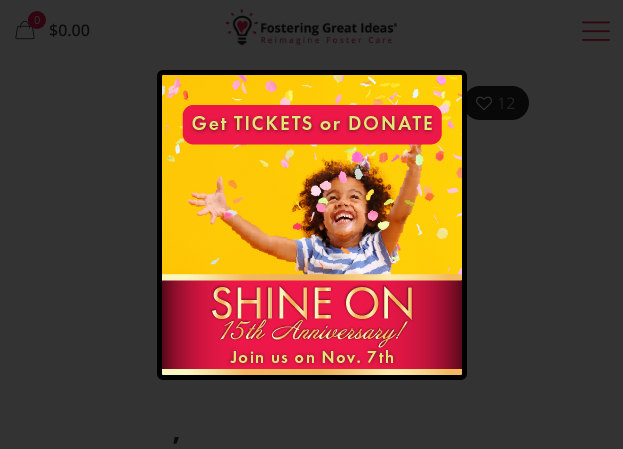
<?xml version="1.0" encoding="UTF-8"?>
<svg xmlns="http://www.w3.org/2000/svg" xmlns:xlink="http://www.w3.org/1999/xlink" width="623" height="449">
  <rect width="100%" height="100%" fill="#333333" />
  <image x="15" y="20" width="20" height="20" xlink:href="image1.png" />
  <circle cx="37" cy="20" r="9" fill="#2f050f" />
  <image x="226" y="9" width="171" height="37" xlink:href="image2.png" />
  <image x="582" y="21" width="28" height="20" xlink:href="image3.png" />
  <rect x="463" y="86" width="66" height="34" rx="17" fill="#080808" />
  <image x="476" y="96" width="16" height="15" xlink:href="image4.png" />
  <image x="162" y="75" width="300" height="300" xlink:href="image5.png" />
  <rect x="159.5" y="72.5" width="305" height="305" rx="3.5" fill="none" stroke="#000000" stroke-width="5" />
  <text x="34" y="24" style="font-family: Open Sans; font-size: 11px; fill: #333333">0</text>
  <text x="49" y="36" style="font-family: Open Sans; font-size: 16px; font-weight: 500; fill: #0a0a0a">$0.00</text>
  <text x="497" y="109" style="font-family: Open Sans; font-size: 16px; fill: #222222">12</text>
  <text x="173" y="457" style="font-family: Open Sans; font-size: 28px; font-weight: bold; fill: #0a0a0a">’</text>
</svg>
